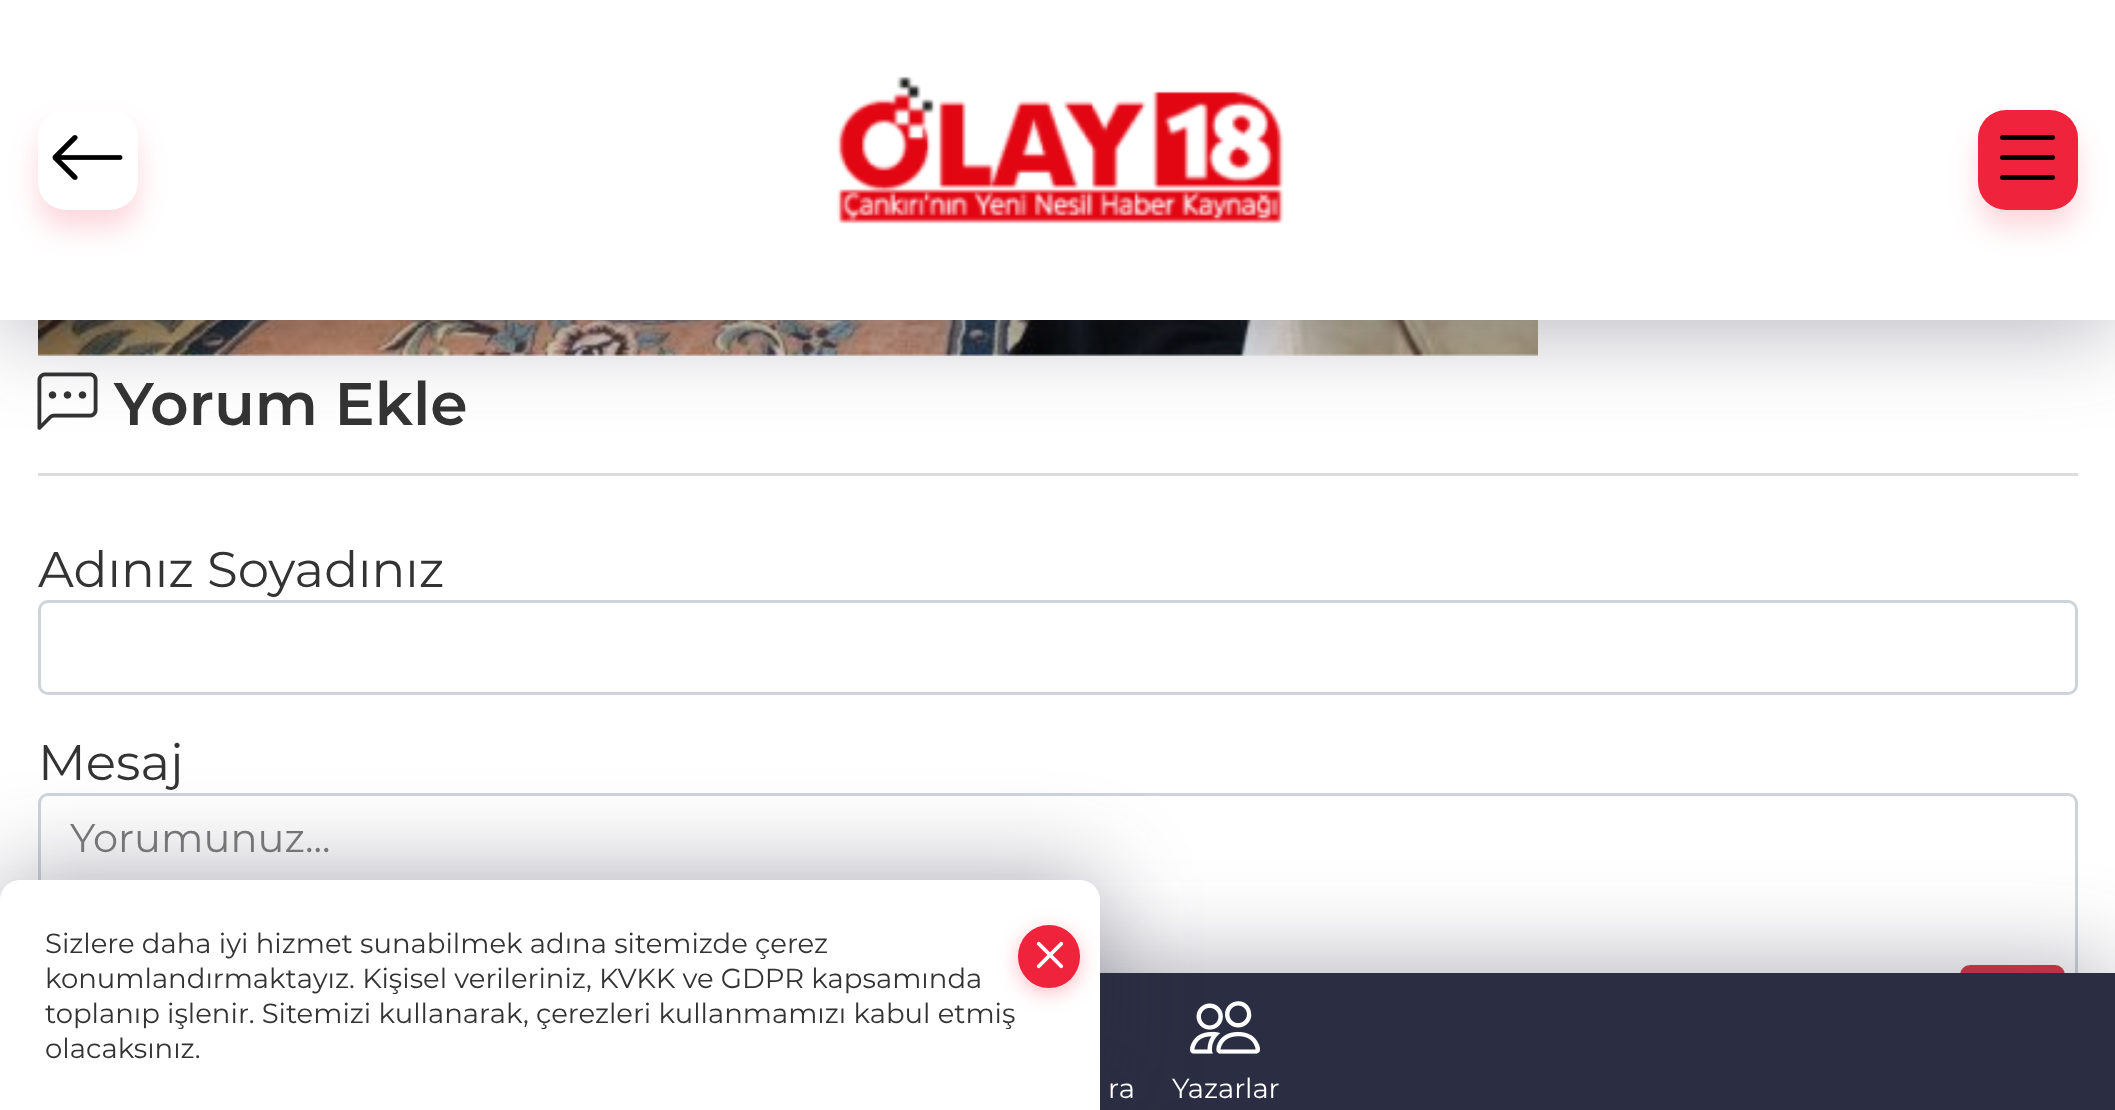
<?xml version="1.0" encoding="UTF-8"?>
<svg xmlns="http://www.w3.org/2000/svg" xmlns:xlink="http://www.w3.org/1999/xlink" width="2115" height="1110">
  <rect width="100%" height="100%" fill="#ffffff" />
  <image x="38" y="320" width="1500" height="36" xlink:href="image4.png" />
  <image x="37" y="372" width="61" height="58" xlink:href="image5.png" />
  <rect y="8" width="2115" height="320" fill="#2b2d42" fill-opacity="0.36" filter="blur(47.5px)" />
  <rect width="2115" height="320" fill="#ffffff" />
  <rect x="38" y="128" width="100" height="100" rx="28" fill="#ef233c" fill-opacity="0.18" filter="blur(14px)" />
  <rect x="38" y="110" width="100" height="100" rx="28" fill="#ffffff" />
  <image x="52" y="135" width="71" height="45" xlink:href="image1.png" />
  <image x="837" y="76" width="447" height="148" xlink:href="image2.png" />
  <rect x="1978" y="128" width="100" height="100" rx="28" fill="#ef233c" fill-opacity="0.18" filter="blur(14px)" />
  <rect x="1978" y="110" width="100" height="100" rx="28" fill="#ef233c" />
  <image x="2000" y="135" width="55" height="45" xlink:href="image3.png" />
  <rect x="38" y="473" width="2040" height="3" fill="#dddddd" />
  <rect x="39.5" y="601.5" width="2037" height="92" rx="8.5" fill="none" stroke="#ced4da" stroke-width="3" />
  <rect x="39.5" y="794.5" width="2037" height="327" rx="8.5" fill="none" stroke="#ced4da" stroke-width="3" />
  <rect x="1961.5" y="966.5" width="102" height="92" rx="8.5" fill="#dc3545" stroke="#dc3545" stroke-width="3" />
  <rect y="965" width="2115" height="138" fill="#2b2d42" fill-opacity="0.36" filter="blur(47.5px)" />
  <rect x="1100" y="973" width="1015" height="137" fill="#2b2d42" />
  <image x="1190" y="1001" width="70" height="53" xlink:href="image6.png" />
  <rect y="873" width="1100" height="230" rx="20" fill="#2b2d42" fill-opacity="0.36" filter="blur(47.5px)" />
  <path d="M 20 880 h 1060 c 11 0 20 9 20 20 v 210 h -1100 v -210 c 0 -11 9 -20 20 -20 z" fill="#ffffff" />
  <rect x="1018" y="930" width="62" height="63" rx="31" fill="#ff566a" fill-opacity="0.38" filter="blur(10px)" />
  <rect x="1018" y="925" width="62" height="63" rx="31" fill="#ef233c" />
  <image x="1036" y="941" width="28" height="28" xlink:href="image7.png" />
  <text x="114" y="425" style="font-family: Montserrat; font-size: 60px; font-weight: 600; fill: #333333">Yorum Ekle</text>
  <text x="38" y="587" style="font-family: Montserrat; font-size: 50px; fill: #333333">Adınız Soyadınız</text>
  <text x="38" y="780" style="font-family: Montserrat; font-size: 50px; fill: #333333">Mesaj</text>
  <text x="70" y="852" style="font-family: Montserrat; font-size: 40px; fill: #757575">Yorumunuz...</text>
  <text x="1108" y="1098" style="font-family: Montserrat; font-size: 27.5px; fill: #ffffff">ra</text>
  <text x="1172" y="1098" style="font-family: Montserrat; font-size: 27.5px; fill: #ffffff">Yazarlar</text>
  <text x="45" y="953" style="font-family: Montserrat; font-size: 27.5px; fill: #333333">Sizlere daha iyi hizmet sunabilmek adına sitemizde çerez</text>
  <text x="45" y="988" style="font-family: Montserrat; font-size: 27.5px; fill: #333333">konumlandırmaktayız. Kişisel verileriniz, KVKK ve GDPR kapsamında</text>
  <text x="45" y="1023" style="font-family: Montserrat; font-size: 27.5px; fill: #333333">toplanıp işlenir. Sitemizi kullanarak, çerezleri kullanmamızı kabul etmiş</text>
  <text x="45" y="1058" style="font-family: Montserrat; font-size: 27.5px; fill: #333333">olacaksınız.</text>
</svg>
